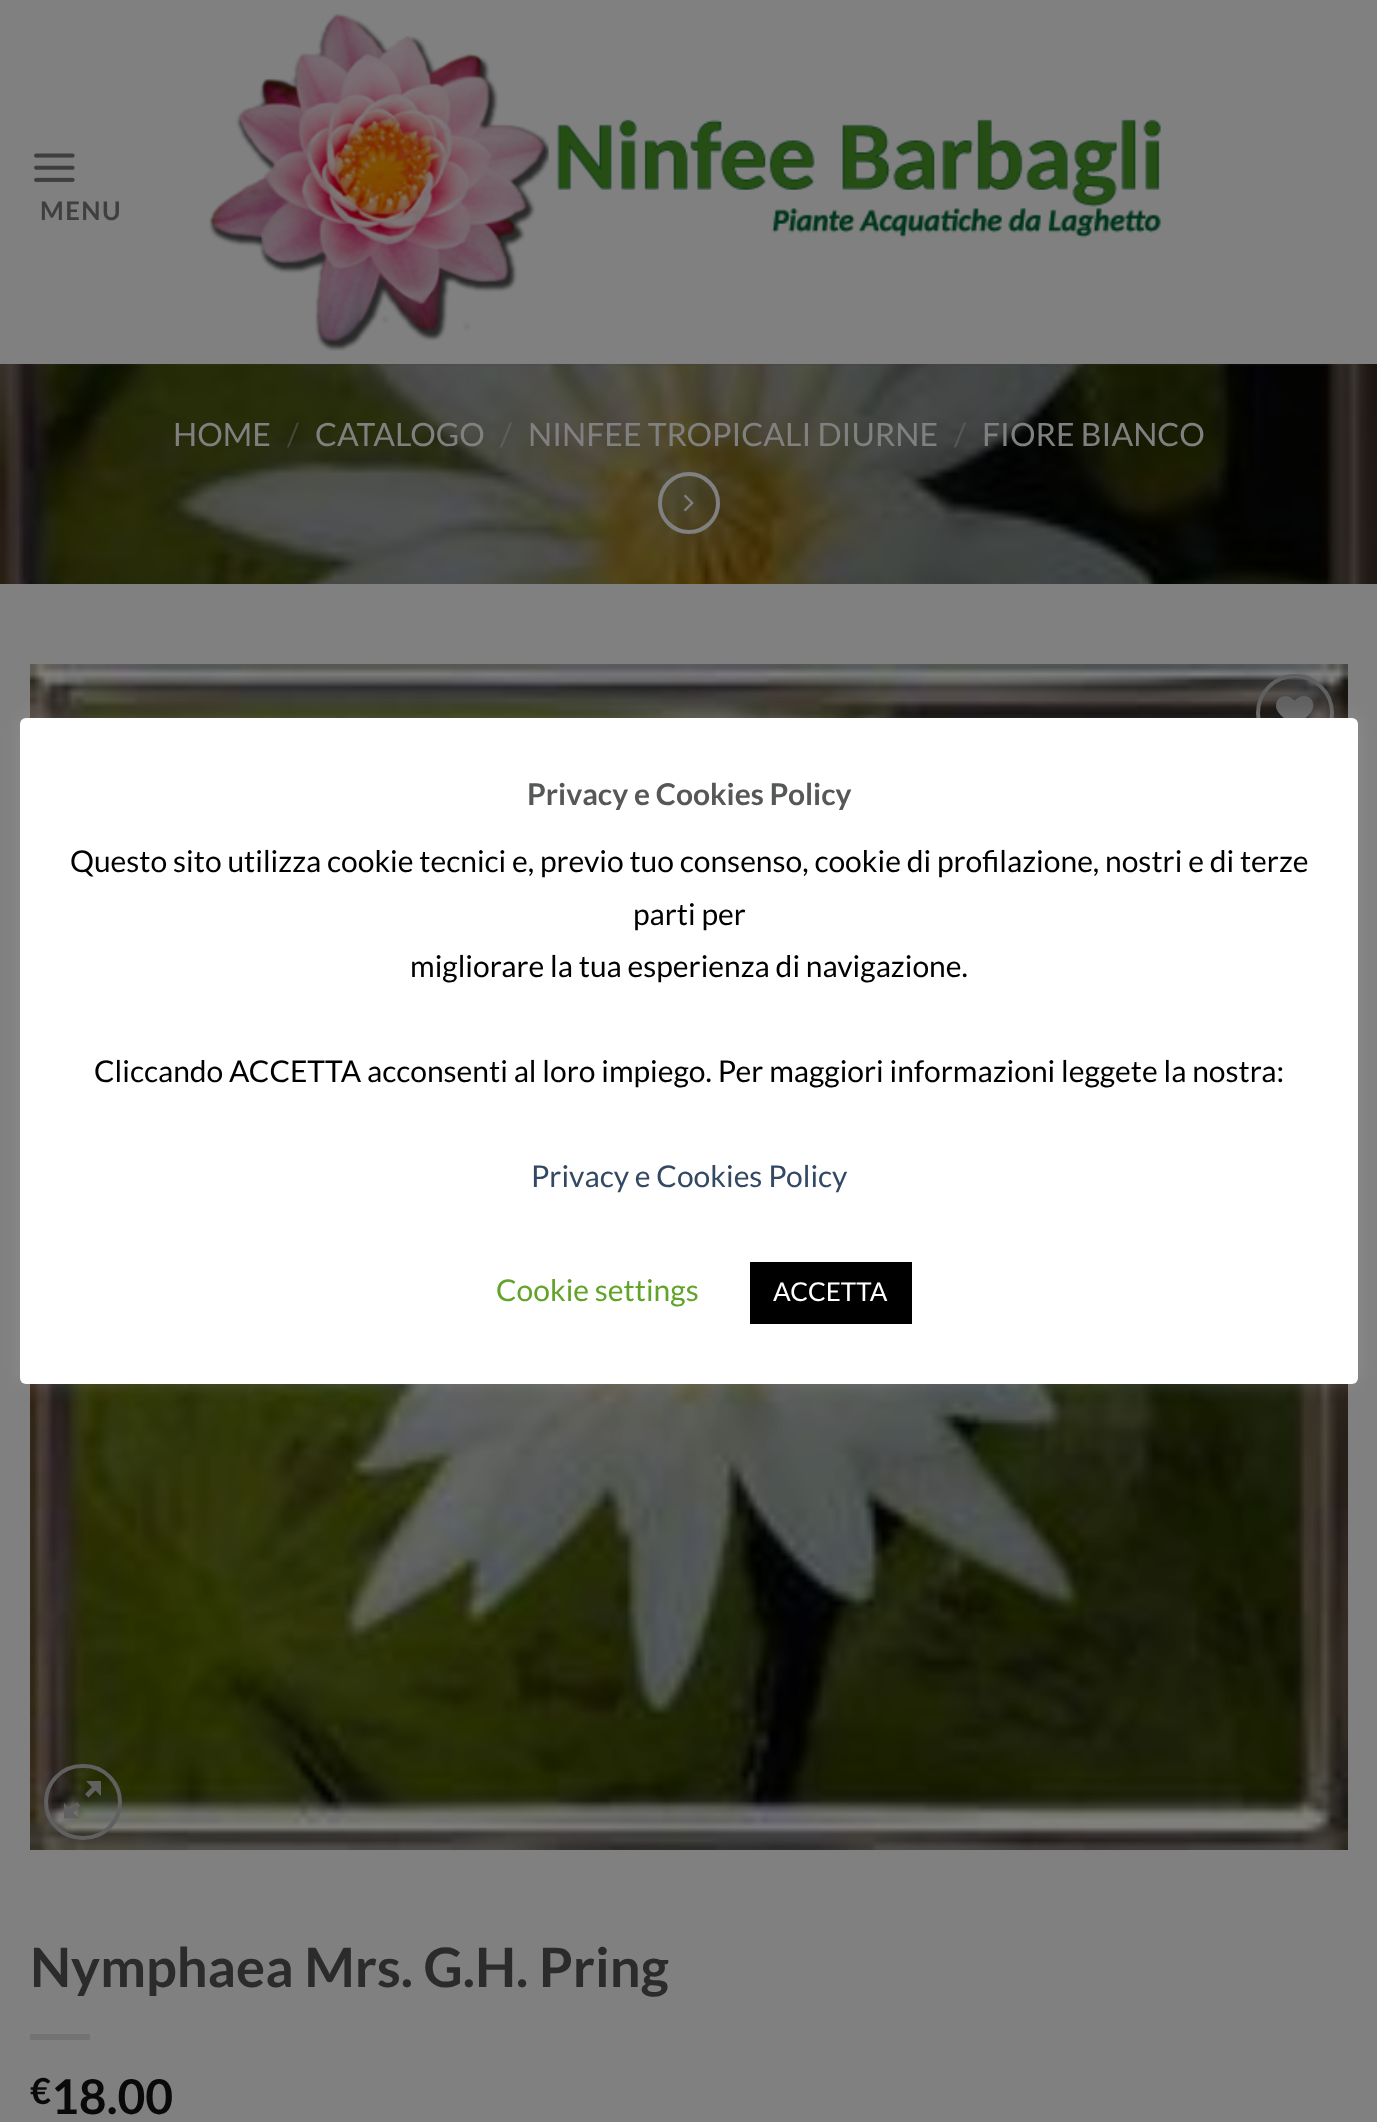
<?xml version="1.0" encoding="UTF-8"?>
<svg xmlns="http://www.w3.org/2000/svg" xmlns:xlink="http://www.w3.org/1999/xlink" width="1377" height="2122">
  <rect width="100%" height="100%" fill="#808080" />
  <image x="34" y="153" width="41" height="29" xlink:href="image1.png" />
  <image x="209" y="13" width="952" height="338" xlink:href="image2.png" />
  <image x="0" y="364" width="1377" height="220" xlink:href="image3.png" />
  <rect x="30" y="364" width="1318" height="2" fill="#3c3c3c" fill-opacity="0.1" />
  <circle cx="689" cy="503" r="29" fill="none" stroke="#808080" stroke-width="4" />
  <image x="683" y="494" width="11" height="18" xlink:href="image4.png" />
  <image x="30" y="664" width="1318" height="1186" xlink:href="image5.png" />
  <circle cx="1295" cy="713" r="37" fill="none" stroke="#606060" stroke-width="4" />
  <image x="1276" y="696" width="38" height="22" xlink:href="image6.png" />
  <rect x="46" y="1766" width="74" height="72" rx="36" fill="none" stroke="#606060" stroke-width="4" />
  <path d="M 101 1781 v 15 l -5.5 -5.5 l -7 7 l -3.5 -3.5 l 7 -7 l -6 -6 z m -20.5 24.5 l -7 7 l 5.5 6 h -15 v -15.5 l 6 6 l 7 -7 z" fill="#606060" />
  <rect x="30" y="2034" width="60" height="6" fill="#737373" />
  <rect x="20" y="716" width="1338" height="666" rx="6" fill="#acabab" fill-opacity="0.3" filter="blur(10px)" />
  <rect x="20" y="718" width="1338" height="666" rx="6" fill="#ffffff" />
  <rect x="750" y="1262" width="162" height="62" fill="#000000" />
  <text x="40" y="220" style="font-family: Lato; font-size: 25.5px; font-weight: bold; letter-spacing: 1.5px; fill: #3f3f3f">MENU</text>
  <text x="173" y="446" style="font-family: Lato; font-size: 32px; fill: #808080">HOME</text>
  <text x="287" y="446" style="font-family: Lato; font-size: 32px; fill: #454835">/</text>
  <text x="315" y="446" style="font-family: Lato; font-size: 32px; fill: #808080">CATALOGO</text>
  <text x="500" y="446" style="font-family: Lato; font-size: 32px; fill: #5d5e5a">/</text>
  <text x="528" y="446" style="font-family: Lato; font-size: 32px; fill: #808080">NINFEE TROPICALI DIURNE</text>
  <text x="954" y="446" style="font-family: Lato; font-size: 32px; fill: #565757">/</text>
  <text x="982" y="446" style="font-family: Lato; font-size: 32px; fill: #808080">FIORE BIANCO</text>
  <text x="30" y="1987" style="font-family: Lato; font-size: 54.4px; font-weight: bold; fill: #2b2b2b">Nymphaea Mrs. G.H. Pring</text>
  <text x="30" y="2104" style="font-family: Lato; font-size: 36px; font-weight: bold; fill: #090909">€</text>
  <text x="51" y="2114" style="font-family: Lato; font-size: 48px; font-weight: bold; fill: #090909">18.00</text>
  <text x="527" y="805" style="font-family: Lato; font-size: 30px; font-weight: bold; fill: #565757">Privacy e Cookies Policy</text>
  <text x="70" y="872" style="font-family: Lato; font-size: 30px; fill: #000000">Questo sito utilizza cookie tecnici e, previo tuo consenso, cookie di profilazione, nostri e di terze</text>
  <text x="633" y="925" style="font-family: Lato; font-size: 30px; fill: #000000">parti per</text>
  <text x="410" y="977" style="font-family: Lato; font-size: 30px; fill: #000000">migliorare la tua esperienza di navigazione.</text>
  <text x="94" y="1082" style="font-family: Lato; font-size: 30px; fill: #000000">Cliccando ACCETTA acconsenti al loro impiego. Per maggiori informazioni leggete la nostra:</text>
  <text x="531" y="1187" style="font-family: Lato; font-size: 30px; fill: #334862">Privacy e Cookies Policy</text>
  <text x="496" y="1301" style="font-family: Lato; font-size: 30px; fill: #62a329">Cookie settings</text>
  <text x="773" y="1301" style="font-family: Lato; font-size: 26px; fill: #ffffff">ACCETTA</text>
</svg>
